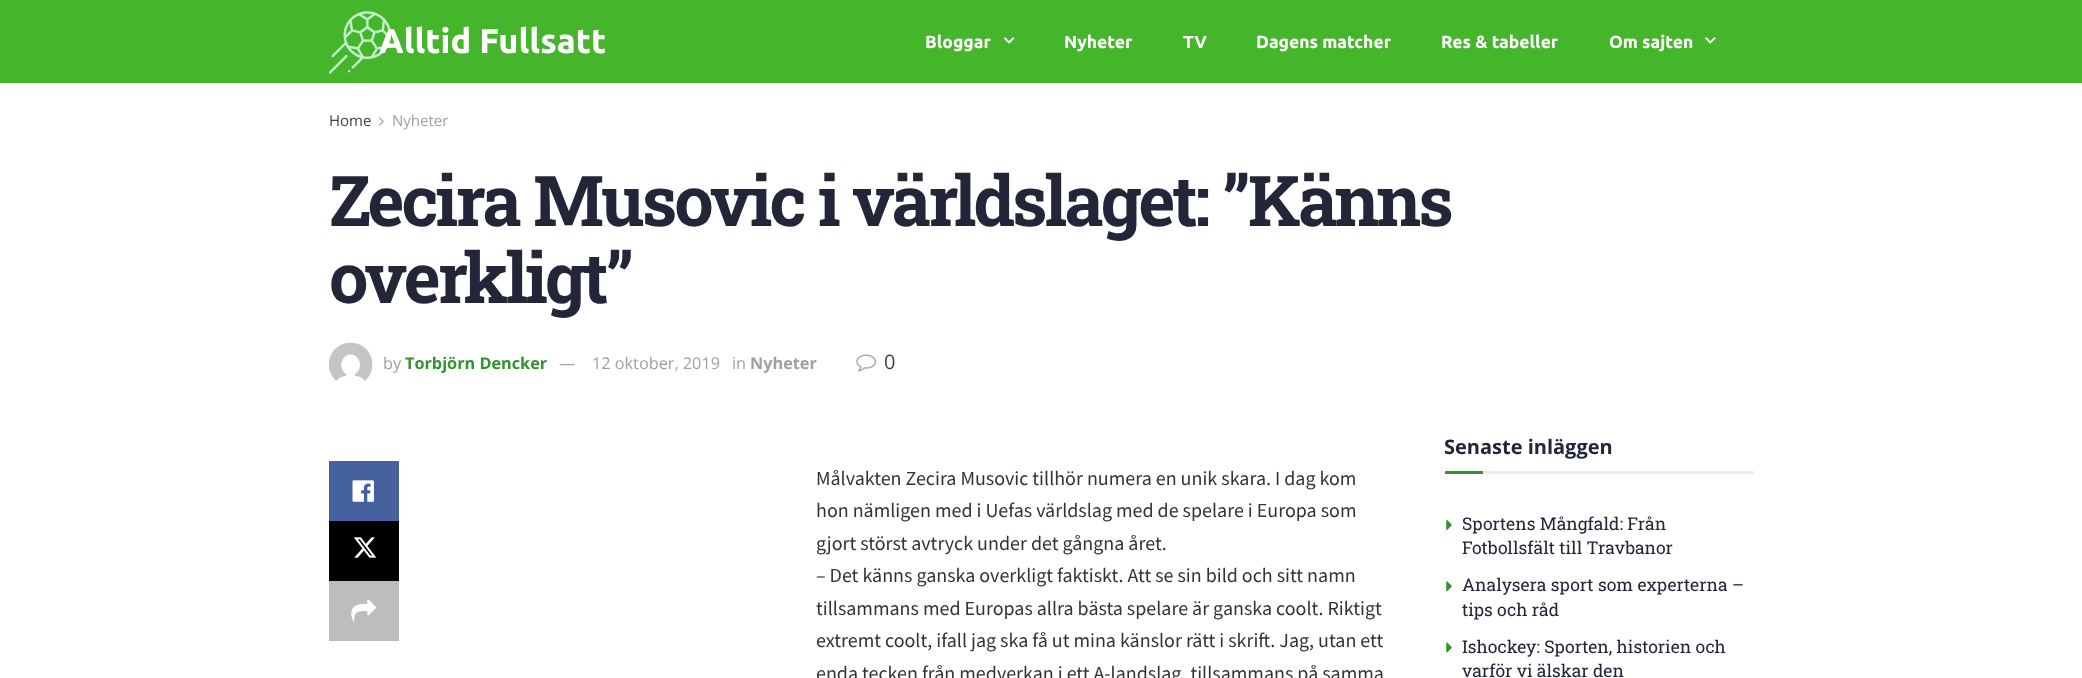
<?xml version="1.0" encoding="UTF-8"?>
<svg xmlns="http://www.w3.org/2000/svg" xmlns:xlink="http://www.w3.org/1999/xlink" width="2082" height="678">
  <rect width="100%" height="100%" fill="#ffffff" />
  <rect width="2082" height="83" fill="#45b52b" />
  <image x="329" y="11" width="62" height="63" xlink:href="image1.png" />
  <image x="1003" y="37" width="12" height="7" xlink:href="image2.png" />
  <image x="1705" y="37" width="11" height="7" xlink:href="image3.png" />
  <image x="379" y="117" width="5" height="9" xlink:href="image4.png" />
  <image x="329" y="342" width="44" height="39" xlink:href="image5.png" />
  <image x="856" y="354" width="21" height="18" xlink:href="image6.png" />
  <rect x="329" y="461" width="70" height="60" fill="#45629f" />
  <image x="352" y="480" width="22" height="22" xlink:href="image7.png" />
  <rect x="329" y="521" width="70" height="60" fill="#000000" />
  <image x="353" y="537" width="24" height="21" xlink:href="image8.png" />
  <rect x="329" y="581" width="70" height="60" fill="#bdbdbd" />
  <image x="351" y="599" width="26" height="23" xlink:href="image9.png" />
  <rect x="1483" y="471" width="271" height="3" fill="#eeeeee" />
  <rect x="1445" y="471" width="38" height="3" fill="#31942e" />
  <image x="1446" y="520" width="6" height="10" xlink:href="image10.png" />
  <image x="1446" y="581" width="6" height="11" xlink:href="image11.png" />
  <image x="1446" y="642" width="6" height="11" xlink:href="image12.png" />
  <text x="379" y="53" style="font-family: Ubuntu; font-size: 34.25px; font-weight: bold; fill: #ffffff">Alltid Fullsatt</text>
  <text x="925" y="48" style="font-family: Ubuntu; font-size: 17.5px; font-weight: bold; fill: #ffffff">Bloggar</text>
  <text x="1064" y="48" style="font-family: Ubuntu; font-size: 17.5px; font-weight: bold; fill: #ffffff">Nyheter</text>
  <text x="1183" y="48" style="font-family: Ubuntu; font-size: 17.5px; font-weight: bold; fill: #ffffff">TV</text>
  <text x="1256" y="48" style="font-family: Ubuntu; font-size: 17.5px; font-weight: bold; fill: #ffffff">Dagens matcher</text>
  <text x="1441" y="48" style="font-family: Ubuntu; font-size: 17.5px; font-weight: bold; fill: #ffffff">Res &amp; tabeller</text>
  <text x="1609" y="48" style="font-family: Ubuntu; font-size: 17.5px; font-weight: bold; fill: #ffffff">Om sajten</text>
  <text x="329" y="126" style="font-family: Open Sans; font-size: 15px; fill: #3d4248">Home</text>
  <text x="392" y="126" style="font-family: Open Sans; font-size: 15px; fill: #a0a0a0">Nyheter</text>
  <text x="329" y="226" style="font-family: Roboto Slab; font-size: 70px; font-weight: bold; letter-spacing: -2.8px; fill: #222638">Zecira Musovic i världslaget: ”Känns</text>
  <text x="329" y="303" style="font-family: Roboto Slab; font-size: 70px; font-weight: bold; letter-spacing: -2.8px; fill: #222638">overkligt”</text>
  <text x="383" y="369" style="font-family: Open Sans; font-size: 16.25px; fill: #a0a0a0">by</text>
  <text x="405" y="369" style="font-family: Open Sans; font-size: 16.25px; font-weight: bold; fill: #31942e">Torbjörn Dencker</text>
  <text x="559" y="369" style="font-family: Open Sans; font-size: 16.25px; fill: #a0a0a0">—</text>
  <text x="592" y="369" style="font-family: Open Sans; font-size: 16.25px; fill: #a0a0a0">12 oktober, 2019</text>
  <text x="732" y="369" style="font-family: Open Sans; font-size: 16.25px; fill: #a0a0a0">in</text>
  <text x="750" y="369" style="font-family: Open Sans; font-size: 16.25px; font-weight: bold; fill: #a0a0a0">Nyheter</text>
  <text x="884" y="369" style="font-family: Open Sans; font-size: 20px; fill: #3d4248">0</text>
  <text x="816" y="485" style="font-family: Source Sans Pro; font-size: 20px; fill: #333333">Målvakten Zecira Musovic tillhör numera en unik skara. I dag kom</text>
  <text x="816" y="517" style="font-family: Source Sans Pro; font-size: 20px; fill: #333333">hon nämligen med i Uefas världslag med de spelare i Europa som</text>
  <text x="816" y="550" style="font-family: Source Sans Pro; font-size: 20px; fill: #333333">gjort störst avtryck under det gångna året.</text>
  <text x="816" y="582" style="font-family: Source Sans Pro; font-size: 20px; fill: #333333">– Det känns ganska overkligt faktiskt. Att se sin bild och sitt namn</text>
  <text x="816" y="615" style="font-family: Source Sans Pro; font-size: 20px; fill: #333333">tillsammans med Europas allra bästa spelare är ganska coolt. Riktigt</text>
  <text x="816" y="647" style="font-family: Source Sans Pro; font-size: 20px; fill: #333333">extremt coolt, ifall jag ska få ut mina känslor rätt i skrift. Jag, utan ett</text>
  <text x="816" y="680" style="font-family: Source Sans Pro; font-size: 20px; fill: #333333">enda tecken från medverkan i ett A-landslag, tillsammans på samma</text>
  <text x="1444" y="454" style="font-family: Open Sans; font-size: 20px; font-weight: bold; fill: #222638">Senaste inläggen</text>
  <text x="1462" y="530" style="font-family: Roboto Slab; font-size: 17.5px; fill: #222638">Sportens Mångfald: Från</text>
  <text x="1462" y="554" style="font-family: Roboto Slab; font-size: 17.5px; fill: #222638">Fotbollsfält till Travbanor</text>
  <text x="1462" y="591" style="font-family: Roboto Slab; font-size: 17.5px; fill: #222638">Analysera sport som experterna –</text>
  <text x="1462" y="616" style="font-family: Roboto Slab; font-size: 17.5px; fill: #222638">tips och råd</text>
  <text x="1462" y="653" style="font-family: Roboto Slab; font-size: 17.5px; fill: #222638">Ishockey: Sporten, historien och</text>
  <text x="1462" y="677" style="font-family: Roboto Slab; font-size: 17.5px; fill: #222638">varför vi älskar den</text>
</svg>
